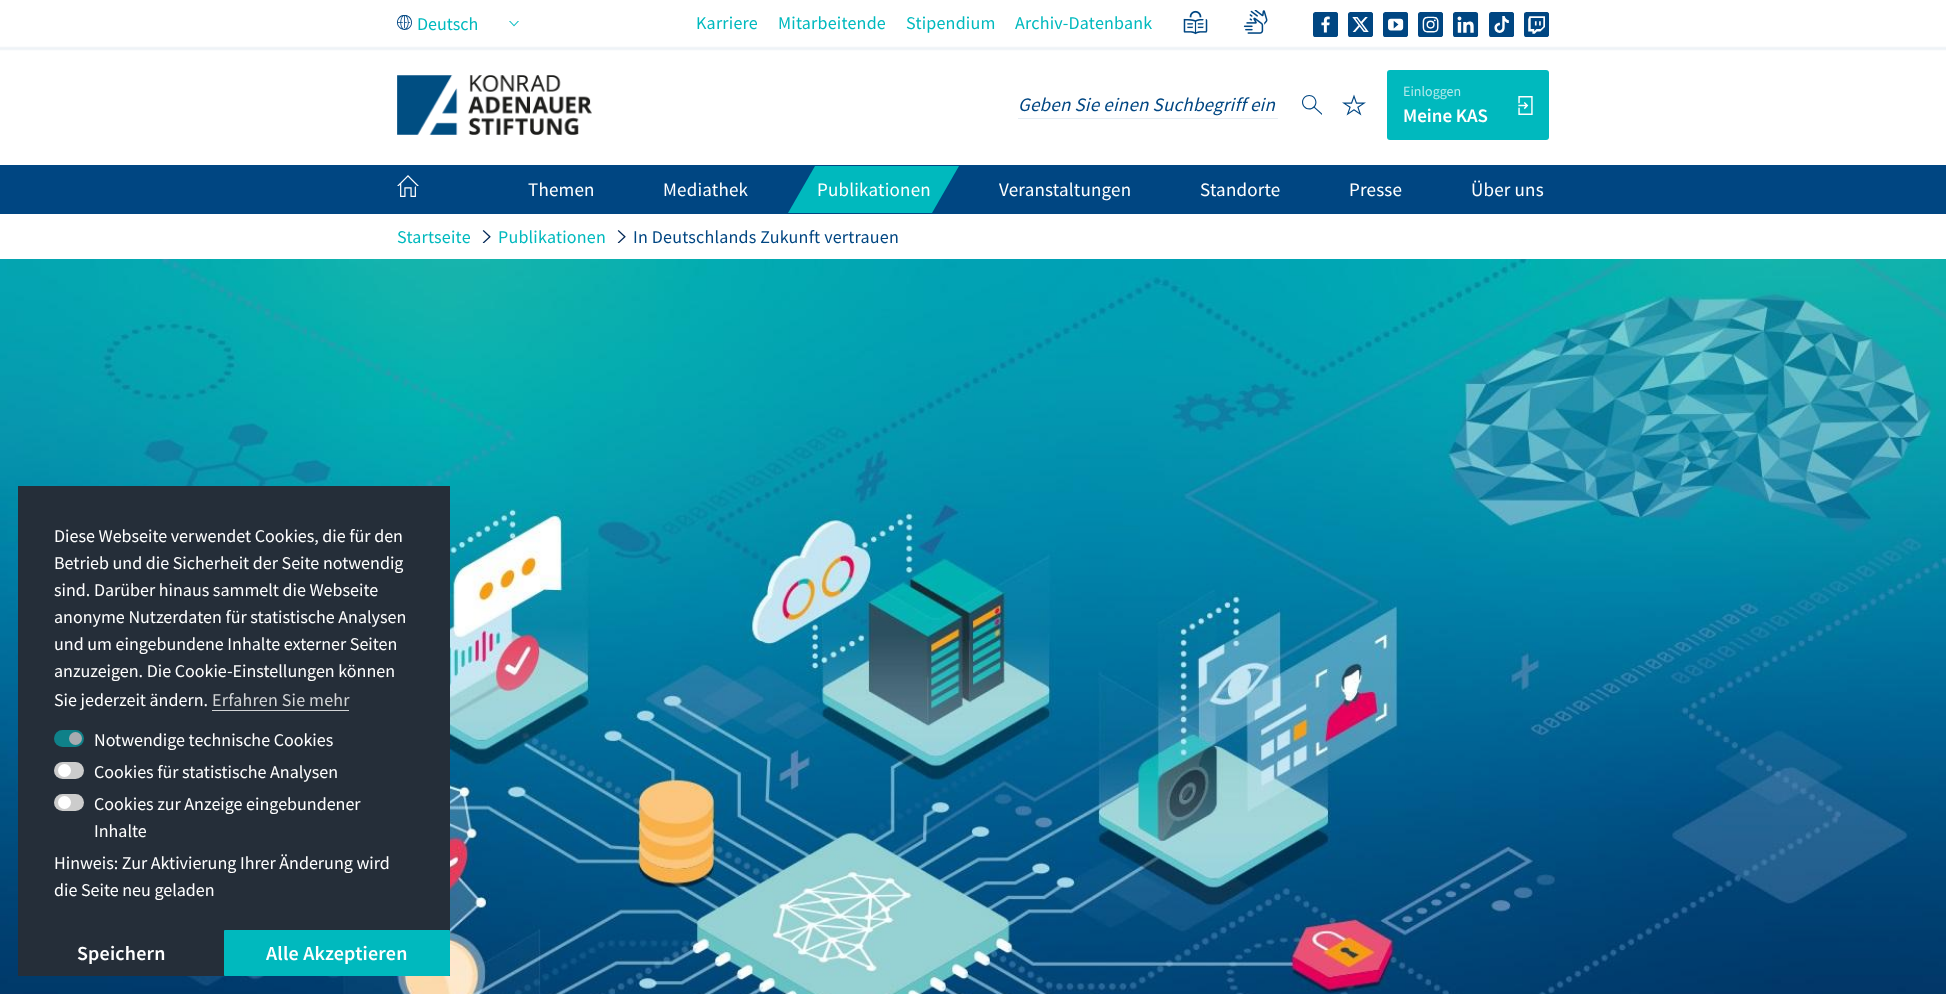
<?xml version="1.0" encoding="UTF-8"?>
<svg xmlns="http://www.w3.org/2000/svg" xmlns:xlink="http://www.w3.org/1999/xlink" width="1946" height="994">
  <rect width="100%" height="100%" fill="#ffffff" />
  <image x="397" y="15" width="15" height="15" xlink:href="image1.png" />
  <image x="509" y="21" width="10" height="6" xlink:href="image2.png" />
  <image x="1183" y="10" width="25" height="25" xlink:href="image3.png" />
  <image x="1243" y="10" width="25" height="24" xlink:href="image4.png" />
  <image x="1313" y="12" width="25" height="25" xlink:href="image5.png" />
  <image x="1348" y="12" width="25" height="25" xlink:href="image6.png" />
  <image x="1383" y="12" width="25" height="25" xlink:href="image7.png" />
  <image x="1418" y="12" width="25" height="25" xlink:href="image8.png" />
  <image x="1453" y="12" width="26" height="25" xlink:href="image9.png" />
  <image x="1489" y="12" width="25" height="25" xlink:href="image10.png" />
  <image x="1524" y="12" width="25" height="25" xlink:href="image11.png" />
  <rect x="-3" y="48" width="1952" height="1" fill="#ccdae6" filter="blur(1px)" />
  <image x="397" y="75" width="195" height="60" xlink:href="image12.png" />
  <rect x="1018" y="118" width="260" height="1" fill="#e5ecf2" />
  <image x="1302" y="95" width="20" height="20" xlink:href="image13.png" />
  <image x="1342" y="94" width="24" height="22" xlink:href="image14.png" />
  <rect x="1387" y="70" width="162" height="70" rx="3" fill="#00b9be" />
  <image x="1518" y="96" width="15" height="19" xlink:href="image15.png" />
  <rect y="165" width="1946" height="49" fill="#004682" />
  <image x="397" y="175" width="22" height="22" xlink:href="image16.png" />
  <path d="M 815 166 h 144 l -27 47 h -144 z" fill="#00b9be" />
  <image x="482" y="230" width="9" height="13" xlink:href="image17.png" />
  <image x="617" y="230" width="9" height="13" xlink:href="image17.png" />
  <image x="0" y="259" width="1946" height="735" xlink:href="image18.png" />
  <rect x="18" y="486" width="432" height="490" fill="#252e39" />
  <rect x="212" y="710" width="137" height="1" fill="#d3d5d7" />
  <rect x="54" y="730" width="30" height="17" rx="8.5" fill="#0f8189" />
  <circle cx="75.5" cy="738.5" r="6.5" fill="#a8abb0" />
  <rect x="54" y="762" width="30" height="17" rx="8.5" fill="#cccccc" />
  <circle cx="64.5" cy="770.5" r="6.5" fill="#ffffff" />
  <rect x="54" y="794" width="30" height="17" rx="8.5" fill="#cccccc" />
  <circle cx="64.5" cy="802.5" r="6.5" fill="#ffffff" />
  <rect x="224" y="930" width="226" height="46" rx="1" fill="#00b9be" />
  <text x="417" y="30" style="font-family: Source Sans Pro; font-size: 18px; fill: #00b9be">Deutsch</text>
  <text x="696" y="29" style="font-family: Source Sans Pro; font-size: 18px; letter-spacing: 0.2px; fill: #00b9be">Karriere</text>
  <text x="778" y="29" style="font-family: Source Sans Pro; font-size: 18px; letter-spacing: 0.2px; fill: #00b9be">Mitarbeitende</text>
  <text x="906" y="29" style="font-family: Source Sans Pro; font-size: 18px; letter-spacing: 0.2px; fill: #00b9be">Stipendium</text>
  <text x="1015" y="29" style="font-family: Source Sans Pro; font-size: 18px; letter-spacing: 0.2px; fill: #00b9be">Archiv-Datenbank</text>
  <text x="1018" y="111" style="font-family: Source Sans Pro; font-size: 19px; font-style: italic; letter-spacing: 0.2px; fill: #004682">Geben Sie einen Suchbegriff ein</text>
  <text x="1403" y="96" style="font-family: Source Sans Pro; font-size: 14px; fill: #b3eaec">Einloggen</text>
  <text x="1403" y="122" style="font-family: Source Sans Pro; font-size: 19px; font-weight: 600; fill: #ffffff">Meine KAS</text>
  <text x="528" y="196" style="font-family: Source Sans Pro; font-size: 19px; letter-spacing: 0.2px; fill: #ffffff">Themen</text>
  <text x="663" y="196" style="font-family: Source Sans Pro; font-size: 19px; letter-spacing: 0.2px; fill: #ffffff">Mediathek</text>
  <text x="817" y="196" style="font-family: Source Sans Pro; font-size: 19px; letter-spacing: 0.2px; fill: #ffffff">Publikationen</text>
  <text x="999" y="196" style="font-family: Source Sans Pro; font-size: 19px; letter-spacing: 0.2px; fill: #ffffff">Veranstaltungen</text>
  <text x="1200" y="196" style="font-family: Source Sans Pro; font-size: 19px; letter-spacing: 0.2px; fill: #ffffff">Standorte</text>
  <text x="1349" y="196" style="font-family: Source Sans Pro; font-size: 19px; letter-spacing: 0.2px; fill: #ffffff">Presse</text>
  <text x="1471" y="196" style="font-family: Source Sans Pro; font-size: 19px; letter-spacing: 0.2px; fill: #ffffff">Über uns</text>
  <text x="397" y="243" style="font-family: Source Sans Pro; font-size: 18px; letter-spacing: 0.2px; fill: #00b9be">Startseite</text>
  <text x="498" y="243" style="font-family: Source Sans Pro; font-size: 18px; letter-spacing: 0.2px; fill: #00b9be">Publikationen</text>
  <text x="633" y="243" style="font-family: Source Sans Pro; font-size: 18px; letter-spacing: 0.2px; fill: #004682">In Deutschlands Zukunft vertrauen</text>
  <text x="54" y="542" style="font-family: Source Sans Pro; font-size: 18px; fill: #ffffff">Diese Webseite verwendet Cookies, die für den</text>
  <text x="54" y="569" style="font-family: Source Sans Pro; font-size: 18px; fill: #ffffff">Betrieb und die Sicherheit der Seite notwendig</text>
  <text x="54" y="596" style="font-family: Source Sans Pro; font-size: 18px; fill: #ffffff">sind. Darüber hinaus sammelt die Webseite</text>
  <text x="54" y="623" style="font-family: Source Sans Pro; font-size: 18px; fill: #ffffff">anonyme Nutzerdaten für statistische Analysen</text>
  <text x="54" y="650" style="font-family: Source Sans Pro; font-size: 18px; fill: #ffffff">und um eingebundene Inhalte externer Seiten</text>
  <text x="54" y="677" style="font-family: Source Sans Pro; font-size: 18px; fill: #ffffff">anzuzeigen. Die Cookie-Einstellungen können</text>
  <text x="54" y="706" style="font-family: Source Sans Pro; font-size: 18px; fill: #ffffff">Sie jederzeit ändern.</text>
  <text x="212" y="706" style="font-family: Source Sans Pro; font-size: 18px; letter-spacing: 0.2px; fill: #d3d5d7">Erfahren Sie mehr</text>
  <text x="94" y="746" style="font-family: Source Sans Pro; font-size: 18px; fill: #ffffff">Notwendige technische Cookies</text>
  <text x="94" y="778" style="font-family: Source Sans Pro; font-size: 18px; fill: #ffffff">Cookies für statistische Analysen</text>
  <text x="94" y="810" style="font-family: Source Sans Pro; font-size: 18px; fill: #ffffff">Cookies zur Anzeige eingebundener</text>
  <text x="94" y="837" style="font-family: Source Sans Pro; font-size: 18px; fill: #ffffff">Inhalte</text>
  <text x="54" y="869" style="font-family: Source Sans Pro; font-size: 18px; fill: #ffffff">Hinweis: Zur Aktivierung Ihrer Änderung wird</text>
  <text x="54" y="896" style="font-family: Source Sans Pro; font-size: 18px; fill: #ffffff">die Seite neu geladen</text>
  <text x="77" y="960" style="font-family: Source Sans Pro; font-size: 20px; font-weight: 600; letter-spacing: 0.2px; fill: #ffffff">Speichern</text>
  <text x="266" y="960" style="font-family: Source Sans Pro; font-size: 20px; font-weight: 600; letter-spacing: 0.2px; fill: #ffffff">Alle Akzeptieren</text>
</svg>
